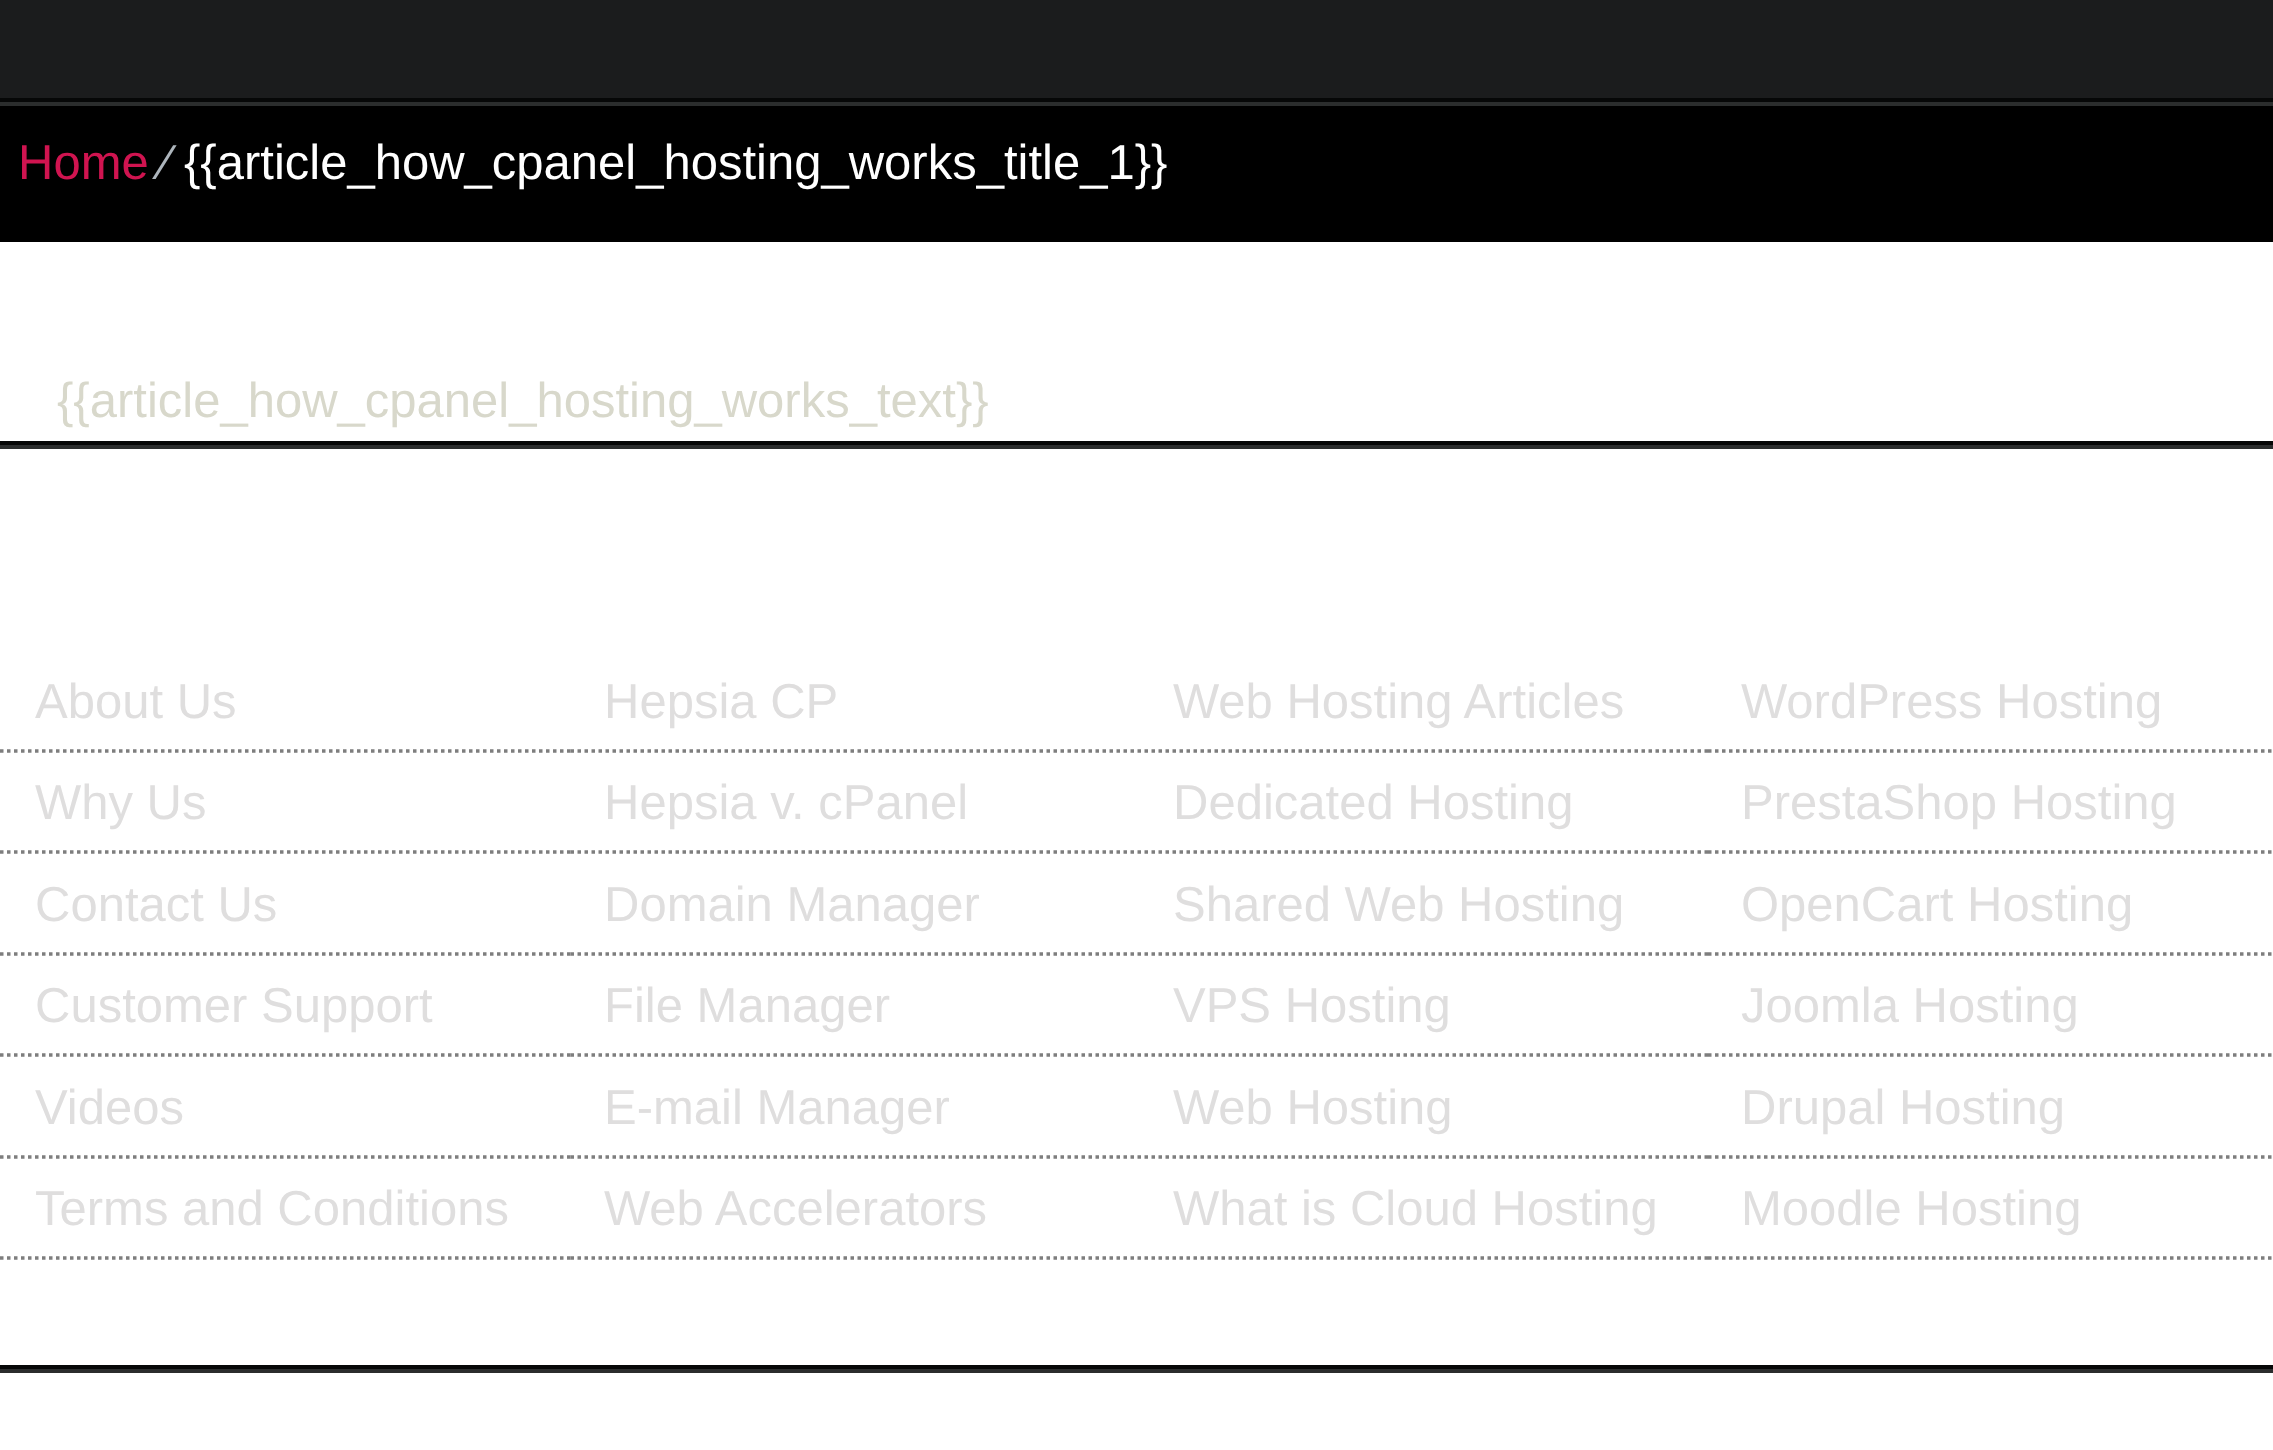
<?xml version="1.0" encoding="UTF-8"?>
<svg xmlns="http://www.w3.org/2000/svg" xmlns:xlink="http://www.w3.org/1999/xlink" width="2273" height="1450">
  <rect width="100%" height="100%" fill="#ffffff" />
  <rect y="441" width="2273" height="4" fill="#060707" />
  <rect width="2273" height="98" fill="#1b1c1d" />
  <rect y="106" width="2273" height="136" fill="#000000" />
  <rect y="102" width="2273" height="4" fill="#2b2d2d" />
  <rect y="98" width="2273" height="4" fill="#060707" />
  <rect y="445" width="2273" height="4" fill="#2b2d2d" />
  <rect y="1365" width="2273" height="4" fill="#060707" />
  <path d="M 0 751 h 570.5" fill="none" stroke="#7e7e7e" stroke-width="3.5" stroke-dasharray="3.5 3.5" />
  <path d="M 0 852 h 570.5" fill="none" stroke="#7e7e7e" stroke-width="3.5" stroke-dasharray="3.5 3.5" />
  <path d="M 0 954 h 570.5" fill="none" stroke="#7e7e7e" stroke-width="3.5" stroke-dasharray="3.5 3.5" />
  <path d="M 0 1055 h 570.5" fill="none" stroke="#7e7e7e" stroke-width="3.5" stroke-dasharray="3.5 3.5" />
  <path d="M 0 1157 h 570.5" fill="none" stroke="#7e7e7e" stroke-width="3.5" stroke-dasharray="3.5 3.5" />
  <path d="M 0 1258 h 570.5" fill="none" stroke="#7e7e7e" stroke-width="3.5" stroke-dasharray="3.5 3.5" />
  <path d="M 570.5 751 h 567" fill="none" stroke="#7e7e7e" stroke-width="3.5" stroke-dasharray="3.5 3.5" />
  <path d="M 570.5 852 h 567" fill="none" stroke="#7e7e7e" stroke-width="3.5" stroke-dasharray="3.5 3.5" />
  <path d="M 570.5 954 h 567" fill="none" stroke="#7e7e7e" stroke-width="3.5" stroke-dasharray="3.5 3.5" />
  <path d="M 570.5 1055 h 567" fill="none" stroke="#7e7e7e" stroke-width="3.5" stroke-dasharray="3.5 3.5" />
  <path d="M 570.5 1157 h 567" fill="none" stroke="#7e7e7e" stroke-width="3.5" stroke-dasharray="3.5 3.5" />
  <path d="M 570.5 1258 h 567" fill="none" stroke="#7e7e7e" stroke-width="3.5" stroke-dasharray="3.5 3.5" />
  <path d="M 1137.5 751 h 570.5" fill="none" stroke="#7e7e7e" stroke-width="3.5" stroke-dasharray="3.5 3.5" />
  <path d="M 1137.5 852 h 570.5" fill="none" stroke="#7e7e7e" stroke-width="3.5" stroke-dasharray="3.5 3.5" />
  <path d="M 1137.5 954 h 570.5" fill="none" stroke="#7e7e7e" stroke-width="3.5" stroke-dasharray="3.5 3.5" />
  <path d="M 1137.5 1055 h 570.5" fill="none" stroke="#7e7e7e" stroke-width="3.5" stroke-dasharray="3.5 3.5" />
  <path d="M 1137.5 1157 h 570.5" fill="none" stroke="#7e7e7e" stroke-width="3.5" stroke-dasharray="3.5 3.5" />
  <path d="M 1137.5 1258 h 570.5" fill="none" stroke="#7e7e7e" stroke-width="3.5" stroke-dasharray="3.5 3.5" />
  <path d="M 1708 751 h 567" fill="none" stroke="#7e7e7e" stroke-width="3.5" stroke-dasharray="3.5 3.5" />
  <path d="M 1708 852 h 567" fill="none" stroke="#7e7e7e" stroke-width="3.5" stroke-dasharray="3.5 3.5" />
  <path d="M 1708 954 h 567" fill="none" stroke="#7e7e7e" stroke-width="3.5" stroke-dasharray="3.5 3.5" />
  <path d="M 1708 1055 h 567" fill="none" stroke="#7e7e7e" stroke-width="3.5" stroke-dasharray="3.5 3.5" />
  <path d="M 1708 1157 h 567" fill="none" stroke="#7e7e7e" stroke-width="3.5" stroke-dasharray="3.5 3.5" />
  <path d="M 1708 1258 h 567" fill="none" stroke="#7e7e7e" stroke-width="3.5" stroke-dasharray="3.5 3.5" />
  <rect y="1369" width="2273" height="4" fill="#2b2d2d" />
  <text x="18" y="179" style="font-family: Liberation Sans; font-size: 49px; fill: #d01450">Home</text>
  <text x="162" y="179" style="font-family: Liberation Sans; font-size: 49px; fill: #adb5bc">⁄</text>
  <text x="184" y="179" style="font-family: Liberation Sans; font-size: 49px; fill: #ffffff">{{article_how_cpanel_hosting_works_title_1}}</text>
  <text x="57" y="417" style="font-family: Liberation Sans; font-size: 49px; fill: #d8d8cb">{{article_how_cpanel_hosting_works_text}}</text>
  <text x="35" y="718" style="font-family: Liberation Sans; font-size: 49px; fill: #dfdede">About Us</text>
  <text x="35" y="819" style="font-family: Liberation Sans; font-size: 49px; fill: #dfdede">Why Us</text>
  <text x="35" y="921" style="font-family: Liberation Sans; font-size: 49px; fill: #dfdede">Contact Us</text>
  <text x="35" y="1022" style="font-family: Liberation Sans; font-size: 49px; fill: #dfdede">Customer Support</text>
  <text x="35" y="1124" style="font-family: Liberation Sans; font-size: 49px; fill: #dfdede">Videos</text>
  <text x="35" y="1225" style="font-family: Liberation Sans; font-size: 49px; fill: #dfdede">Terms and Conditions</text>
  <text x="604" y="718" style="font-family: Liberation Sans; font-size: 49px; fill: #dfdede">Hepsia CP</text>
  <text x="604" y="819" style="font-family: Liberation Sans; font-size: 49px; fill: #dfdede">Hepsia v. cPanel</text>
  <text x="604" y="921" style="font-family: Liberation Sans; font-size: 49px; fill: #dfdede">Domain Manager</text>
  <text x="604" y="1022" style="font-family: Liberation Sans; font-size: 49px; fill: #dfdede">File Manager</text>
  <text x="604" y="1124" style="font-family: Liberation Sans; font-size: 49px; fill: #dfdede">E-mail Manager</text>
  <text x="604" y="1225" style="font-family: Liberation Sans; font-size: 49px; fill: #dfdede">Web Accelerators</text>
  <text x="1173" y="718" style="font-family: Liberation Sans; font-size: 49px; fill: #dfdede">Web Hosting Articles</text>
  <text x="1173" y="819" style="font-family: Liberation Sans; font-size: 49px; fill: #dfdede">Dedicated Hosting</text>
  <text x="1173" y="921" style="font-family: Liberation Sans; font-size: 49px; fill: #dfdede">Shared Web Hosting</text>
  <text x="1173" y="1022" style="font-family: Liberation Sans; font-size: 49px; fill: #dfdede">VPS Hosting</text>
  <text x="1173" y="1124" style="font-family: Liberation Sans; font-size: 49px; fill: #dfdede">Web Hosting</text>
  <text x="1173" y="1225" style="font-family: Liberation Sans; font-size: 49px; fill: #dfdede">What is Cloud Hosting</text>
  <text x="1741" y="718" style="font-family: Liberation Sans; font-size: 49px; fill: #dfdede">WordPress Hosting</text>
  <text x="1741" y="819" style="font-family: Liberation Sans; font-size: 49px; fill: #dfdede">PrestaShop Hosting</text>
  <text x="1741" y="921" style="font-family: Liberation Sans; font-size: 49px; fill: #dfdede">OpenCart Hosting</text>
  <text x="1741" y="1022" style="font-family: Liberation Sans; font-size: 49px; fill: #dfdede">Joomla Hosting</text>
  <text x="1741" y="1124" style="font-family: Liberation Sans; font-size: 49px; fill: #dfdede">Drupal Hosting</text>
  <text x="1741" y="1225" style="font-family: Liberation Sans; font-size: 49px; fill: #dfdede">Moodle Hosting</text>
</svg>
